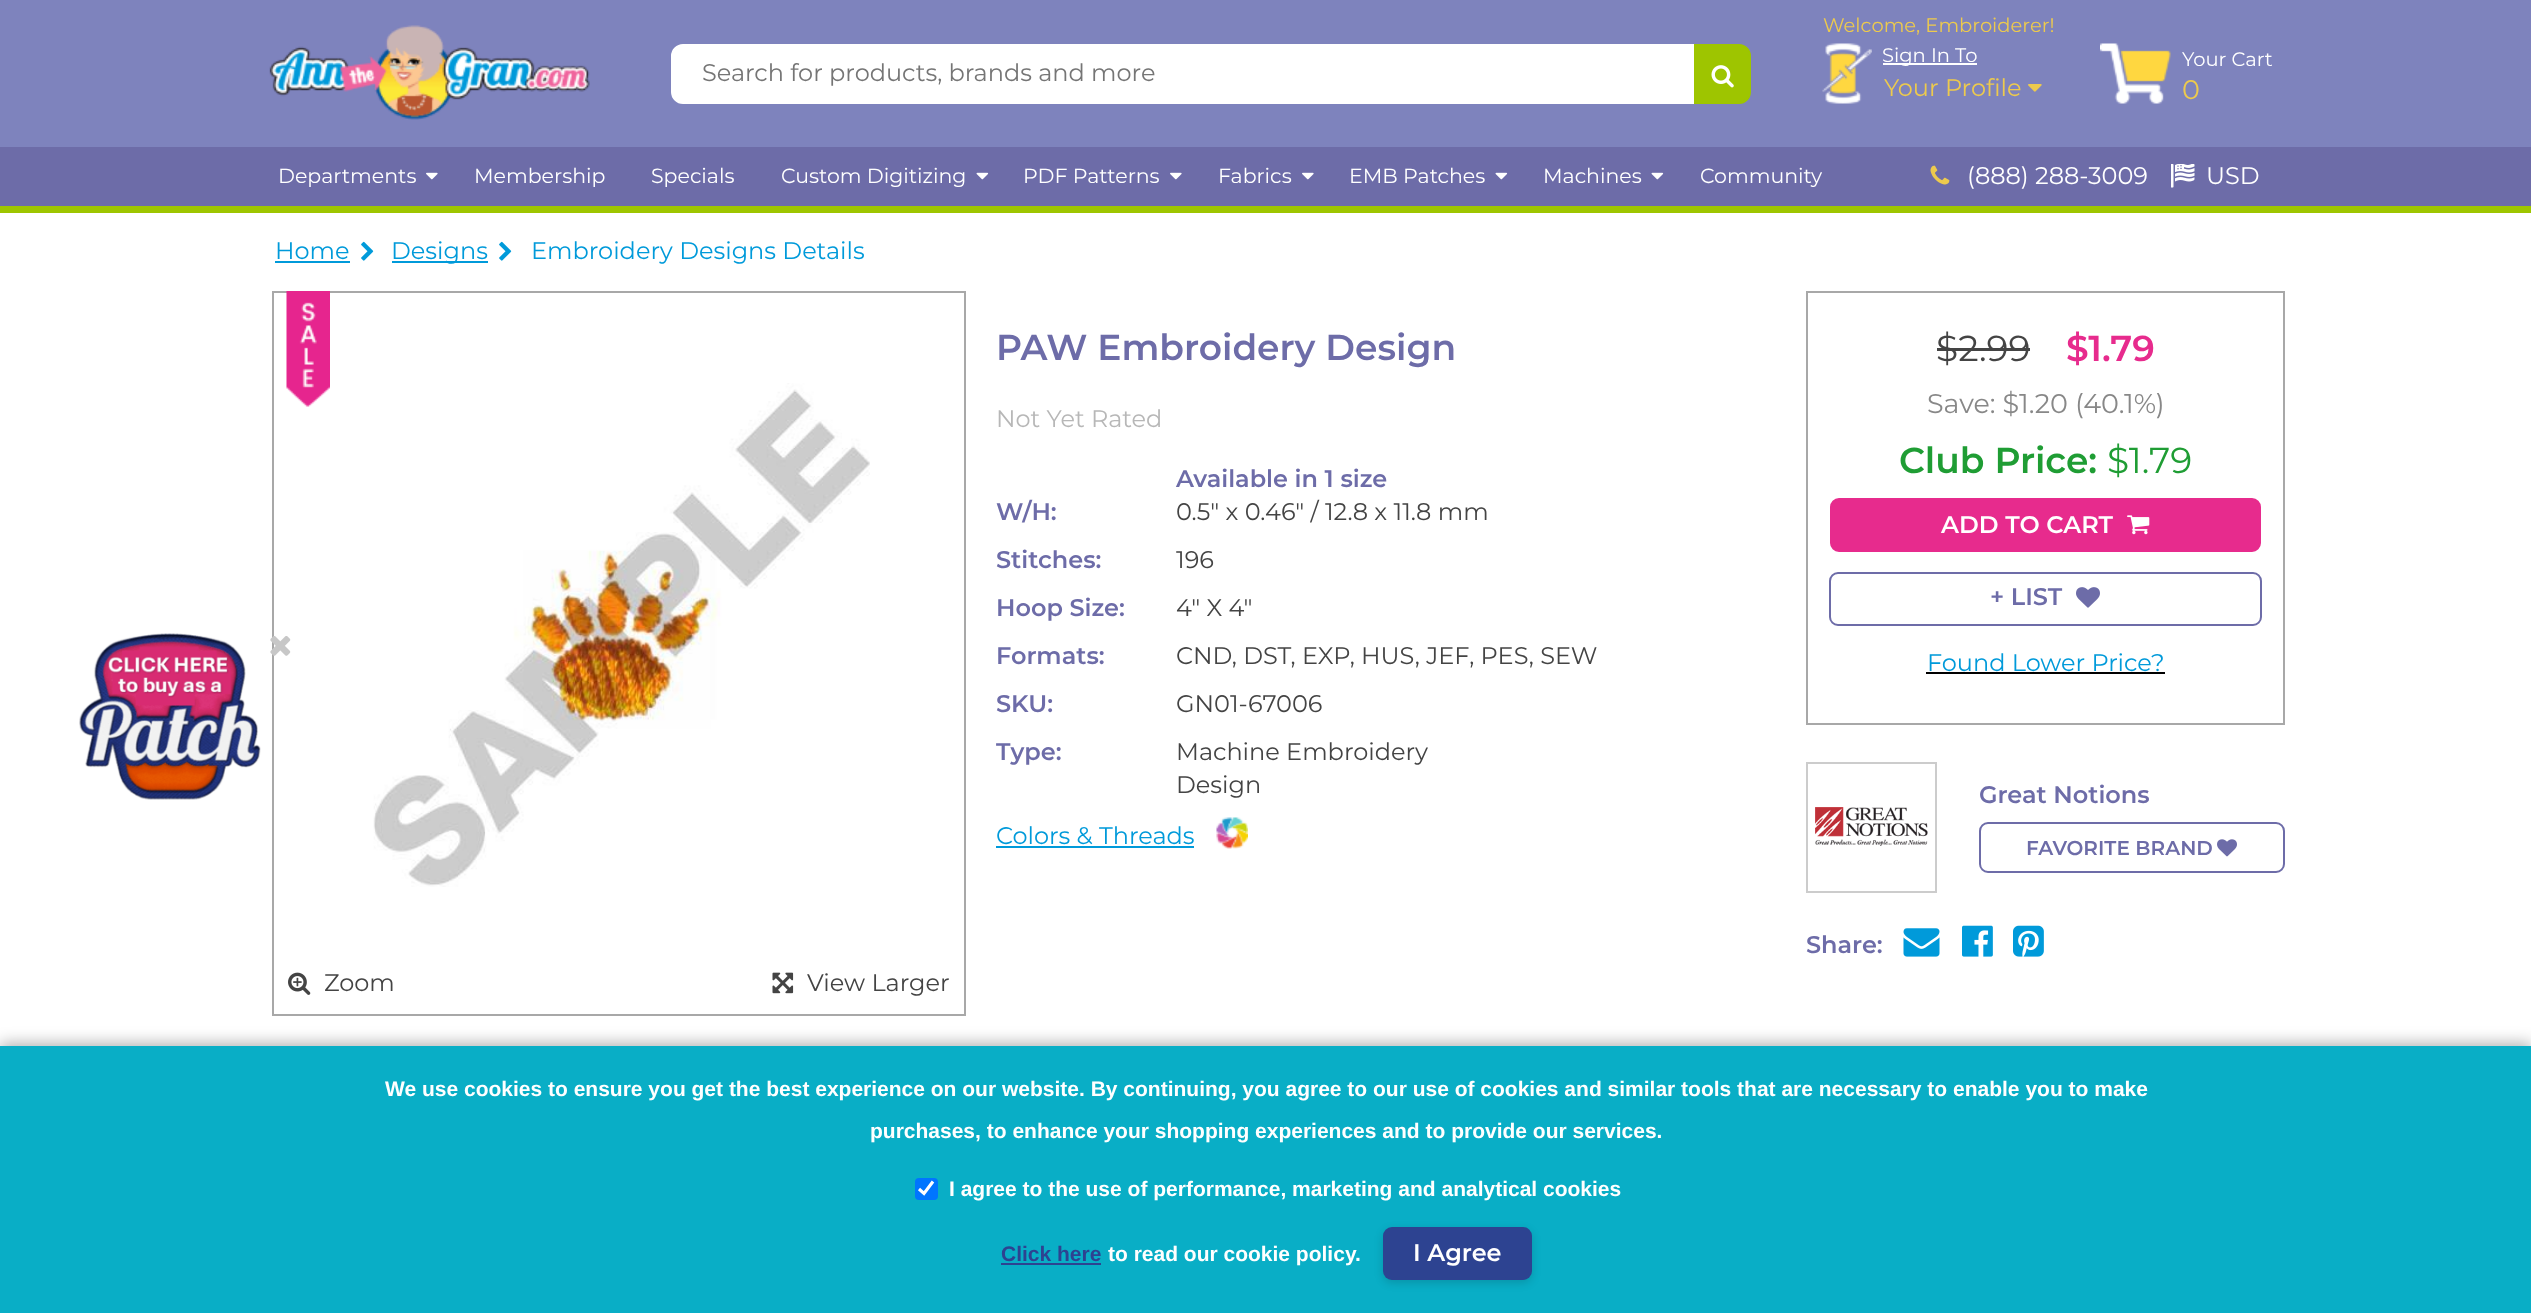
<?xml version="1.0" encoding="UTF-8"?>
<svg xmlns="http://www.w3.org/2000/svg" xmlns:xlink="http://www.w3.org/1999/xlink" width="2531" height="1313">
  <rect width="100%" height="100%" fill="#ffffff" />
  <rect width="2531" height="147" fill="#7e83bd" />
  <image x="269" y="25" width="321" height="95" xlink:href="image1.png" />
  <path d="M 683 45 h 1010 v 58 h -1010 c -6 0 -11 -5 -11 -11 v -36 c 0 -6 5 -11 11 -11 z" fill="#ffffff" stroke="#ffffff" stroke-width="2" />
  <path d="M 1695 45 h 44 c 6 0 11 5 11 11 v 36 c 0 6 -5 11 -11 11 h -44 z" fill="#9ec500" stroke="#9ec500" stroke-width="2" />
  <image x="1711" y="65" width="23" height="23" xlink:href="image2.png" />
  <image x="1822" y="43" width="50" height="61" xlink:href="image3.png" />
  <rect x="1883" y="63" width="94" height="2" fill="#ffffff" />
  <image x="2028" y="84" width="14" height="8" xlink:href="image4.png" />
  <image x="2100" y="43" width="71" height="61" xlink:href="image5.png" />
  <rect y="147" width="2531" height="59" fill="#6d6ca8" />
  <rect y="206" width="2531" height="7" fill="#9ec500" />
  <image x="426" y="172" width="12" height="8" xlink:href="image6.png" />
  <image x="976" y="172" width="13" height="8" xlink:href="image7.png" />
  <image x="1170" y="172" width="12" height="8" xlink:href="image6.png" />
  <image x="1302" y="172" width="12" height="8" xlink:href="image6.png" />
  <image x="1495" y="172" width="13" height="8" xlink:href="image7.png" />
  <image x="1651" y="172" width="13" height="8" xlink:href="image7.png" />
  <image x="1930" y="165" width="20" height="20" xlink:href="image8.png" />
  <image x="2171" y="164" width="24" height="24" xlink:href="image9.png" />
  <rect x="275" y="261" width="75" height="2" fill="#009ada" />
  <image x="361" y="241" width="13" height="20" xlink:href="image10.png" />
  <rect x="392" y="261" width="96" height="2" fill="#009ada" />
  <image x="499" y="241" width="13" height="20" xlink:href="image10.png" />
  <image x="79" y="633" width="182" height="167" xlink:href="image11.png" />
  <rect x="273" y="292" width="692" height="723" fill="none" stroke="#a8a8a8" stroke-width="2" />
  <image x="270" y="636" width="21" height="20" xlink:href="image12.png" />
  <rect x="996" y="846" width="198" height="2" fill="#009ada" />
  <image x="1216" y="817" width="32" height="32" xlink:href="image13.png" />
  <rect x="1807" y="292" width="477" height="432" fill="none" stroke="#a8a8a8" stroke-width="2" />
  <rect x="1937" y="348" width="93" height="3" fill="#444444" />
  <rect x="1831" y="499" width="429" height="52" rx="8" fill="#e72b8d" stroke="#e72b8d" stroke-width="2" />
  <image x="2127" y="515" width="23" height="20" xlink:href="image14.png" />
  <rect x="1830" y="573" width="431" height="52" rx="8" fill="none" stroke="#6d6ca8" stroke-width="2" />
  <image x="2076" y="587" width="24" height="21" xlink:href="image15.png" />
  <rect x="1926" y="672" width="239" height="2" fill="#000000" />
  <rect x="1807" y="763" width="129" height="129" fill="none" stroke="#cccccc" stroke-width="2" />
  <image x="1815" y="807" width="113" height="39" xlink:href="image16.png" />
  <rect x="1980" y="823" width="304" height="49" rx="8" fill="none" stroke="#6d6ca8" stroke-width="2" />
  <image x="2217" y="839" width="20" height="18" xlink:href="image17.png" />
  <image x="1903" y="928" width="37" height="29" xlink:href="image18.png" />
  <image x="1962" y="925" width="31" height="32" xlink:href="image19.png" />
  <image x="2013" y="925" width="31" height="32" xlink:href="image20.png" />
  <image x="286" y="291" width="44" height="116" xlink:href="image21.png" />
  <image x="373" y="383" width="497" height="504" xlink:href="image22.png" />
  <image x="288" y="972" width="23" height="23" xlink:href="image23.png" />
  <image x="772" y="972" width="22" height="22" xlink:href="image24.png" />
  <rect y="1043" width="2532" height="268" fill="#000000" fill-opacity="0.3" filter="blur(7.5px)" />
  <rect y="1046" width="2531" height="267" fill="#09aec6" />
  <rect x="915" y="1178" width="23" height="22" rx="4" fill="#0075ff" />
  <path d="M 919 1189 l 5 4.5 l 9 -12" fill="none" stroke="#ffffff" stroke-width="3.1" />
  <rect x="1001" y="1263" width="100" height="2" fill="#2d4391" />
  <rect x="1383" y="1230" width="149" height="53" rx="9" fill="#000000" fill-opacity="0.15" filter="blur(4.5px)" />
  <rect x="1383" y="1227" width="149" height="53" rx="9" fill="#2d4391" />
  <text x="702" y="81" style="font-family: Montserrat; font-size: 24px; fill: #757575">Search for products, brands and more</text>
  <text x="1823" y="32" style="font-family: Montserrat; font-size: 19.5px; fill: #edca4d">Welcome, Embroiderer!</text>
  <text x="1882" y="62" style="font-family: Montserrat; font-size: 19.5px; fill: #ffffff">Sign In To</text>
  <text x="1884" y="96" style="font-family: Montserrat; font-size: 24px; fill: #edca4d">Your Profile</text>
  <text x="2182" y="66" style="font-family: Montserrat; font-size: 19.5px; fill: #ffffff">Your Cart</text>
  <text x="2182" y="99" style="font-family: Montserrat; font-size: 27px; fill: #edca4d">0</text>
  <text x="278" y="183" style="font-family: Montserrat; font-size: 20.5px; fill: #ffffff">Departments</text>
  <text x="474" y="183" style="font-family: Montserrat; font-size: 20.5px; fill: #ffffff">Membership</text>
  <text x="651" y="183" style="font-family: Montserrat; font-size: 20.5px; fill: #ffffff">Specials</text>
  <text x="781" y="183" style="font-family: Montserrat; font-size: 20.5px; fill: #ffffff">Custom Digitizing</text>
  <text x="1023" y="183" style="font-family: Montserrat; font-size: 20.5px; fill: #ffffff">PDF Patterns</text>
  <text x="1218" y="183" style="font-family: Montserrat; font-size: 20.5px; fill: #ffffff">Fabrics</text>
  <text x="1349" y="183" style="font-family: Montserrat; font-size: 20.5px; fill: #ffffff">EMB Patches</text>
  <text x="1543" y="183" style="font-family: Montserrat; font-size: 20.5px; fill: #ffffff">Machines</text>
  <text x="1700" y="183" style="font-family: Montserrat; font-size: 20.5px; fill: #ffffff">Community</text>
  <text x="1967" y="184" style="font-family: Montserrat; font-size: 24px; fill: #ffffff">(888) 288-3009</text>
  <text x="2206" y="184" style="font-family: Montserrat; font-size: 24px; fill: #ffffff">USD</text>
  <text x="275" y="259" style="font-family: Montserrat; font-size: 24px; fill: #009ada">Home</text>
  <text x="391" y="259" style="font-family: Montserrat; font-size: 24px; fill: #009ada">Designs</text>
  <text x="531" y="259" style="font-family: Montserrat; font-size: 24px; fill: #009ada">Embroidery Designs Details</text>
  <text x="996" y="360" style="font-family: Montserrat; font-size: 36px; font-weight: 600; fill: #6d6ca8">PAW Embroidery Design</text>
  <text x="996" y="427" style="font-family: Montserrat; font-size: 24px; fill: #b7b7b7">Not Yet Rated</text>
  <text x="996" y="520" style="font-family: Montserrat; font-size: 24px; font-weight: 600; fill: #6d6ca8">W/H:</text>
  <text x="1176" y="487" style="font-family: Montserrat; font-size: 24px; font-weight: 600; fill: #6d6ca8">Available in 1 size</text>
  <text x="1176" y="520" style="font-family: Montserrat; font-size: 24px; fill: #444444">0.5" x 0.46" / 12.8 x 11.8 mm</text>
  <text x="996" y="568" style="font-family: Montserrat; font-size: 24px; font-weight: 600; fill: #6d6ca8">Stitches:</text>
  <text x="1176" y="568" style="font-family: Montserrat; font-size: 24px; fill: #444444">196</text>
  <text x="996" y="616" style="font-family: Montserrat; font-size: 24px; font-weight: 600; fill: #6d6ca8">Hoop Size:</text>
  <text x="1176" y="616" style="font-family: Montserrat; font-size: 24px; fill: #444444">4" X 4"</text>
  <text x="996" y="664" style="font-family: Montserrat; font-size: 24px; font-weight: 600; fill: #6d6ca8">Formats:</text>
  <text x="1176" y="664" style="font-family: Montserrat; font-size: 24px; fill: #444444">CND, DST, EXP, HUS, JEF, PES, SEW</text>
  <text x="996" y="712" style="font-family: Montserrat; font-size: 24px; font-weight: 600; fill: #6d6ca8">SKU:</text>
  <text x="1176" y="712" style="font-family: Montserrat; font-size: 24px; fill: #444444">GN01-67006</text>
  <text x="996" y="760" style="font-family: Montserrat; font-size: 24px; font-weight: 600; fill: #6d6ca8">Type:</text>
  <text x="1176" y="760" style="font-family: Montserrat; font-size: 24px; fill: #444444">Machine Embroidery</text>
  <text x="1176" y="793" style="font-family: Montserrat; font-size: 24px; fill: #444444">Design</text>
  <text x="996" y="844" style="font-family: Montserrat; font-size: 24px; fill: #009ada">Colors &amp; Threads</text>
  <text x="1936" y="361" style="font-family: Montserrat; font-size: 36px; fill: #444444">$2.99</text>
  <text x="2066" y="361" style="font-family: Montserrat; font-size: 36px; font-weight: 600; fill: #e72b8d">$1.79</text>
  <text x="1927" y="413" style="font-family: Montserrat; font-size: 27px; fill: #888888">Save: $1.20 (40.1%)</text>
  <text x="1899" y="473" style="font-family: Montserrat; font-size: 36px; font-weight: 600; fill: #1f9d34">Club Price:</text>
  <text x="2107" y="473" style="font-family: Montserrat; font-size: 36px; fill: #1f9d34">$1.79</text>
  <text x="1941" y="533" style="font-family: Montserrat; font-size: 24px; font-weight: 600; fill: #ffffff">ADD TO CART</text>
  <text x="1990" y="605" style="font-family: Montserrat; font-size: 24px; font-weight: 600; fill: #6d6ca8">+ LIST</text>
  <text x="1927" y="671" style="font-family: Montserrat; font-size: 24px; fill: #009ada">Found Lower Price?</text>
  <text x="1979" y="803" style="font-family: Montserrat; font-size: 24px; font-weight: 600; fill: #6d6ca8">Great Notions</text>
  <text x="2026" y="855" style="font-family: Montserrat; font-size: 20px; font-weight: 600; fill: #6d6ca8">FAVORITE BRAND</text>
  <text x="1806" y="953" style="font-family: Montserrat; font-size: 24px; font-weight: 600; fill: #6d6ca8">Share:</text>
  <text x="324" y="991" style="font-family: Montserrat; font-size: 24px; fill: #444444">Zoom</text>
  <text x="807" y="991" style="font-family: Montserrat; font-size: 24px; fill: #444444">View Larger</text>
  <text x="385" y="1096" style="font-family: Liberation Sans; font-size: 21px; font-weight: bold; fill: #ffffff">We use cookies to ensure you get the best experience on our website. By continuing, you agree to our use of cookies and similar tools that are necessary to enable you to make</text>
  <text x="870" y="1138" style="font-family: Liberation Sans; font-size: 21px; font-weight: bold; fill: #ffffff">purchases, to enhance your shopping experiences and to provide our services.</text>
  <text x="949" y="1196" style="font-family: Liberation Sans; font-size: 21px; font-weight: bold; fill: #ffffff">I agree to the use of performance, marketing and analytical cookies</text>
  <text x="1001" y="1261" style="font-family: Liberation Sans; font-size: 21px; font-weight: bold; fill: #2d4391">Click here</text>
  <text x="1108" y="1261" style="font-family: Liberation Sans; font-size: 21px; font-weight: bold; fill: #ffffff">to read our cookie policy.</text>
  <text x="1413" y="1261" style="font-family: Montserrat; font-size: 24px; font-weight: 600; fill: #ffffff">I Agree</text>
</svg>
